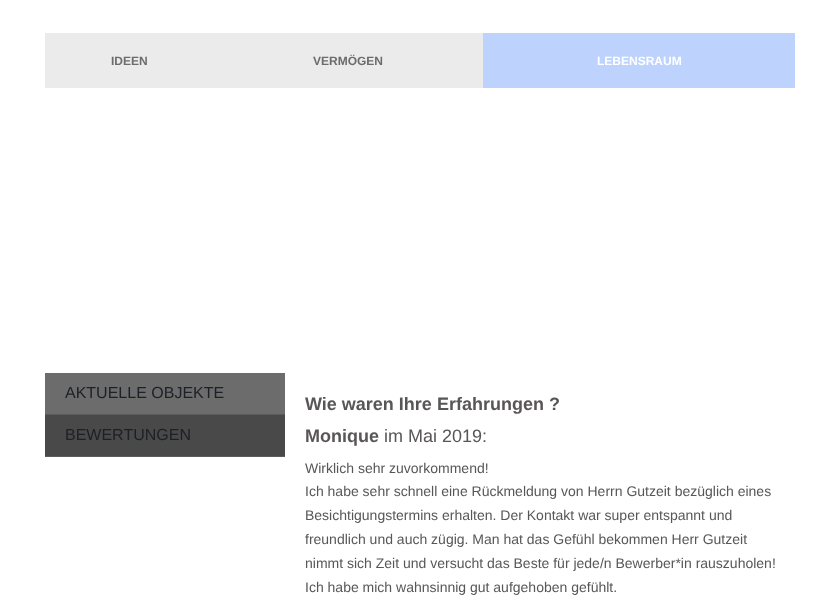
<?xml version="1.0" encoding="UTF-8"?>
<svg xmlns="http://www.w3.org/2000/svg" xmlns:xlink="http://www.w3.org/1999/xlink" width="840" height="610">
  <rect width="100%" height="100%" fill="#ffffff" />
  <rect x="483" y="33" width="312" height="55" fill="#bdd2fc" />
  <rect x="45" y="373" width="240" height="41" fill="#6c6c6c" />
  <rect x="45" y="414" width="240" height="1" fill="#5c5c5c" />
  <rect x="45" y="415" width="240" height="41" fill="#494949" />
  <rect x="45" y="456" width="240" height="1" fill="#5c5c5c" />
  <rect x="45" y="33" width="438" height="55" fill="#ebebeb" />
  <text x="313" y="65" style="font-family: Liberation Sans; font-size: 12px; font-weight: bold; fill: #6c6c6c">VERMÖGEN</text>
  <text x="597" y="65" style="font-family: Liberation Sans; font-size: 12px; font-weight: bold; fill: #ffffff">LEBENSRAUM</text>
  <text x="65" y="398" style="font-family: Liberation Sans; font-size: 16px; fill: #1d2026">AKTUELLE OBJEKTE</text>
  <text x="65" y="440" style="font-family: Liberation Sans; font-size: 16px; fill: #1d2026">BEWERTUNGEN</text>
  <text x="111" y="65" style="font-family: Liberation Sans; font-size: 12px; font-weight: bold; fill: #6c6c6c">IDEEN</text>
  <text x="305" y="410" style="font-family: Liberation Sans; font-size: 18px; font-weight: bold; fill: #595656">Wie waren Ihre Erfahrungen ?</text>
  <text x="305" y="442" style="font-family: Liberation Sans; font-size: 18px; font-weight: bold; fill: #595656">Monique</text>
  <text x="384" y="442" style="font-family: Liberation Sans; font-size: 18px; fill: #595656">im Mai 2019:</text>
  <text x="305" y="473" style="font-family: Liberation Sans; font-size: 14px; fill: #595656">Wirklich sehr zuvorkommend!</text>
  <text x="305" y="496" style="font-family: Liberation Sans; font-size: 14px; fill: #595656">Ich habe sehr schnell eine Rückmeldung von Herrn Gutzeit bezüglich eines</text>
  <text x="305" y="520" style="font-family: Liberation Sans; font-size: 14px; fill: #595656">Besichtigungstermins erhalten. Der Kontakt war super entspannt und</text>
  <text x="305" y="544" style="font-family: Liberation Sans; font-size: 14px; fill: #595656">freundlich und auch zügig. Man hat das Gefühl bekommen Herr Gutzeit</text>
  <text x="305" y="568" style="font-family: Liberation Sans; font-size: 14px; fill: #595656">nimmt sich Zeit und versucht das Beste für jede/n Bewerber*in rauszuholen!</text>
  <text x="305" y="592" style="font-family: Liberation Sans; font-size: 14px; fill: #595656">Ich habe mich wahnsinnig gut aufgehoben gefühlt.</text>
</svg>
